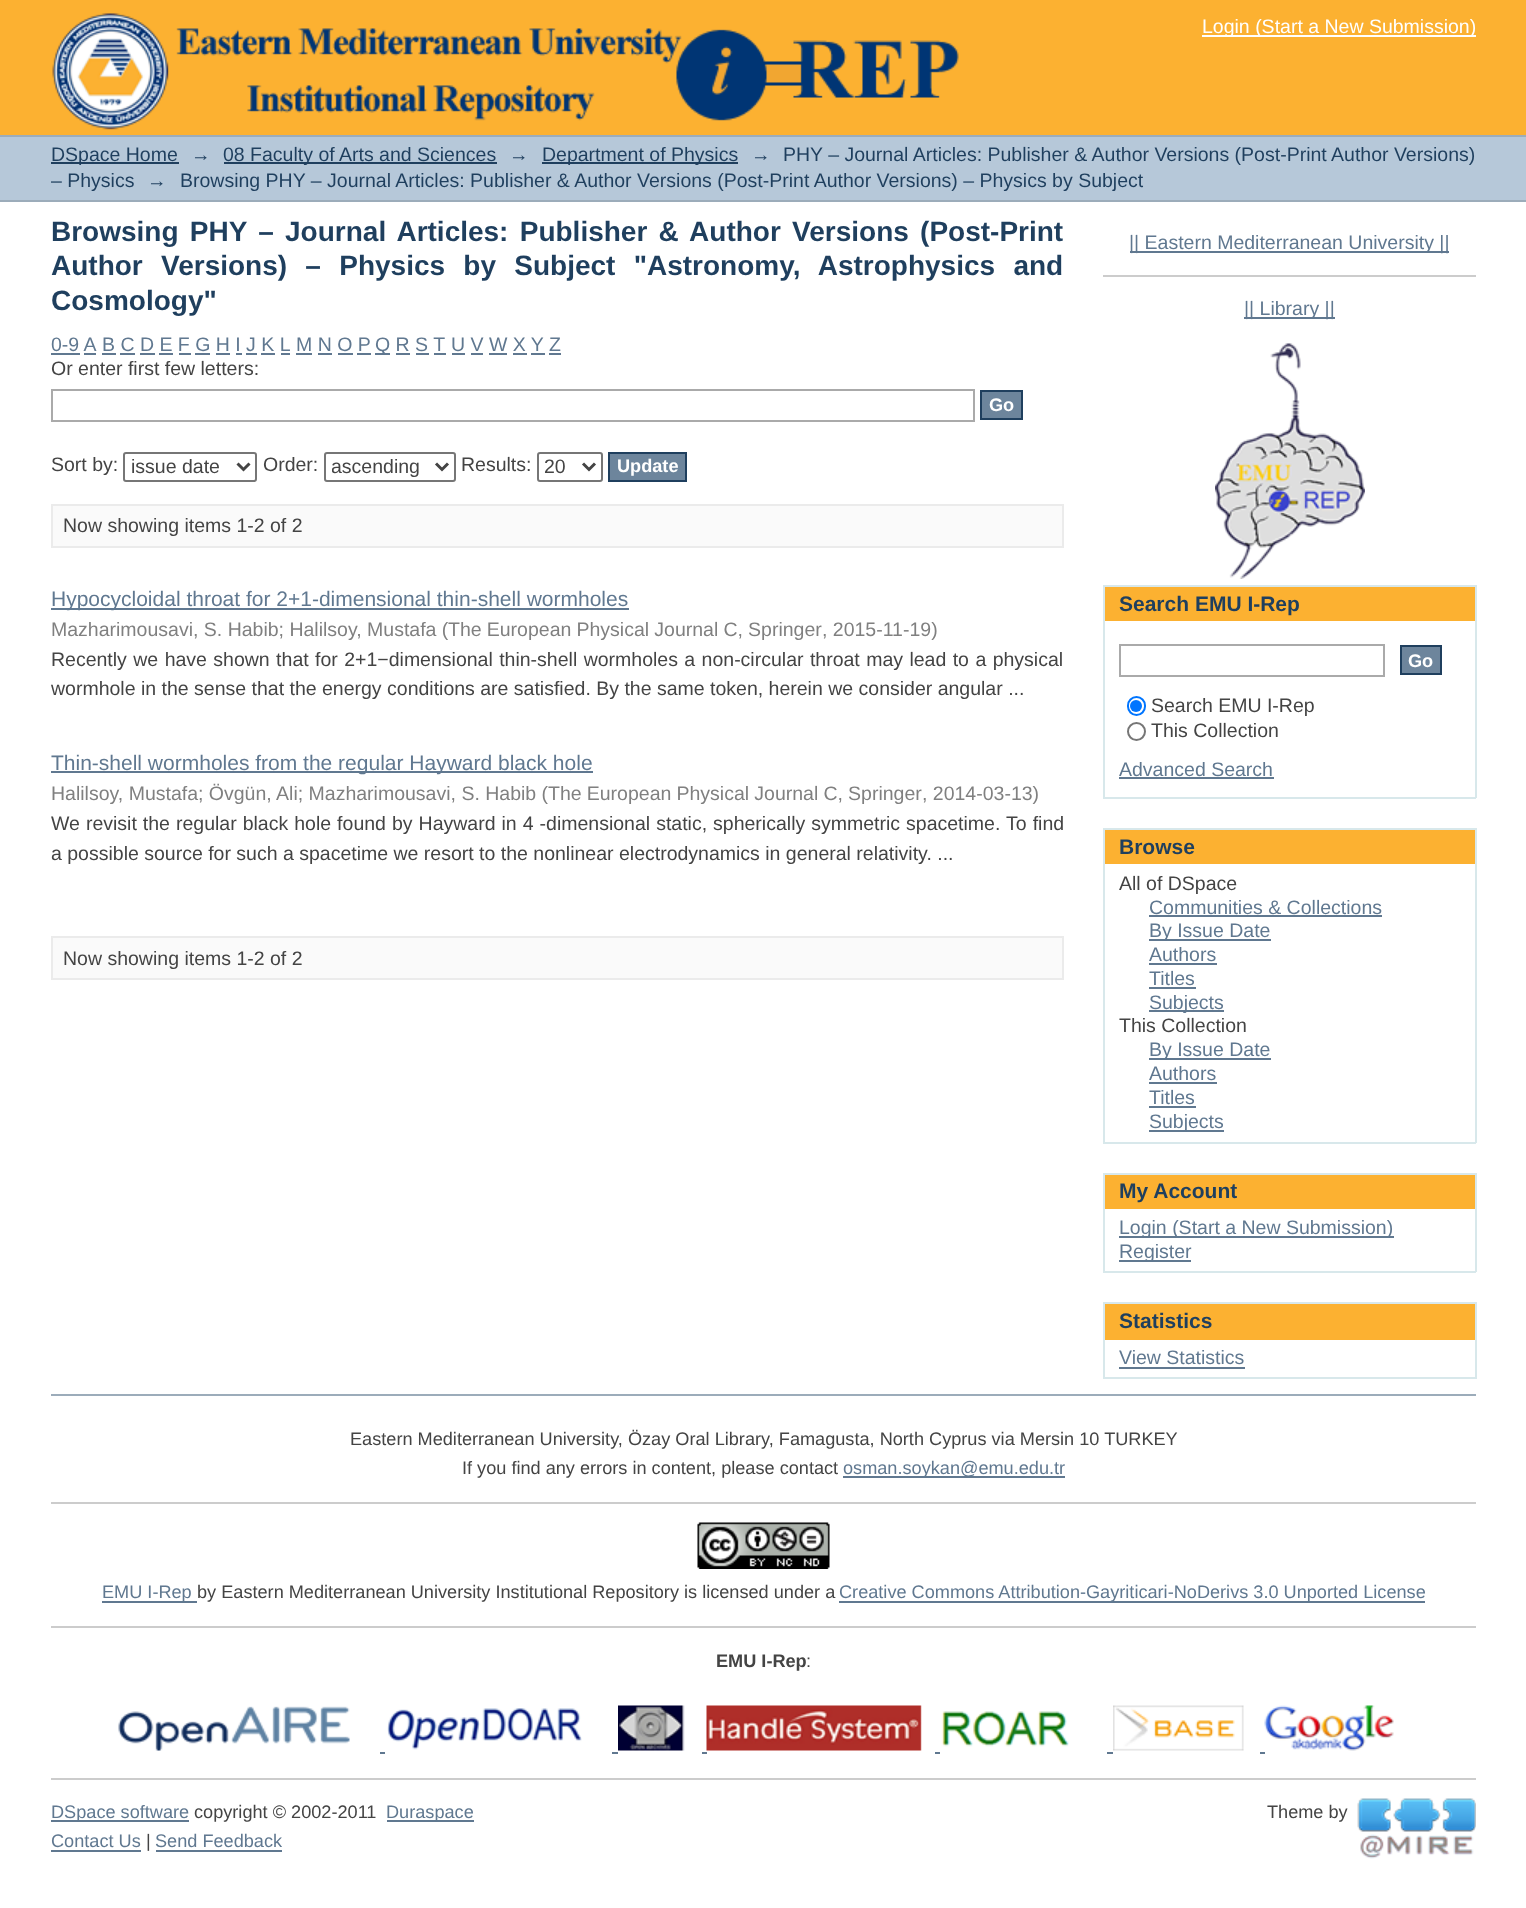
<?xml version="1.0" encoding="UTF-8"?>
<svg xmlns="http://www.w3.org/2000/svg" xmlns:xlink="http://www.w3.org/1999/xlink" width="1526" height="1908">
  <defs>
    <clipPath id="clip1"><rect x="332" y="453" width="99" height="26" /></clipPath>
  </defs>
  <rect width="100%" height="100%" fill="#ffffff" />
  <rect width="1526" height="135" fill="#fcb131" />
  <image x="52" y="13" width="907" height="117" xlink:href="image1.png" />
  <rect x="1202" y="35" width="274" height="2" fill="#ffffff" />
  <rect y="137" width="1526" height="63" fill="#b6c8d9" />
  <rect y="135" width="1526" height="2" fill="#9cacba" />
  <rect y="200" width="1526" height="2" fill="#9cacba" />
  <rect x="51" y="162" width="128" height="2" fill="#1f3f5e" />
  <rect x="224" y="162" width="273" height="2" fill="#1f3f5e" />
  <rect x="542" y="162" width="196" height="2" fill="#1f3f5e" />
  <rect x="51" y="353" width="29" height="2" fill="#607890" />
  <rect x="102" y="353" width="14" height="2" fill="#607890" />
  <rect x="296" y="353" width="16" height="2" fill="#607890" />
  <rect x="375" y="353" width="15" height="2" fill="#607890" />
  <rect x="452" y="353" width="13" height="2" fill="#607890" />
  <rect x="549" y="353" width="12" height="2" fill="#607890" />
  <rect x="84" y="353" width="12" height="2" fill="#607890" />
  <rect x="120" y="353" width="15" height="2" fill="#607890" />
  <rect x="140" y="353" width="15" height="2" fill="#607890" />
  <rect x="159" y="353" width="14" height="2" fill="#607890" />
  <rect x="179" y="353" width="12" height="2" fill="#607890" />
  <rect x="195" y="353" width="15" height="2" fill="#607890" />
  <rect x="216" y="353" width="14" height="2" fill="#607890" />
  <rect x="236" y="353" width="6" height="2" fill="#607890" />
  <rect x="246" y="353" width="11" height="2" fill="#607890" />
  <rect x="261" y="353" width="14" height="2" fill="#607890" />
  <rect x="281" y="353" width="9" height="2" fill="#607890" />
  <rect x="318" y="353" width="14" height="2" fill="#607890" />
  <rect x="338" y="353" width="15" height="2" fill="#607890" />
  <rect x="357" y="353" width="14" height="2" fill="#607890" />
  <rect x="396" y="353" width="14" height="2" fill="#607890" />
  <rect x="416" y="353" width="13" height="2" fill="#607890" />
  <rect x="434" y="353" width="12" height="2" fill="#607890" />
  <rect x="471" y="353" width="12" height="2" fill="#607890" />
  <rect x="489" y="353" width="18" height="2" fill="#607890" />
  <rect x="513" y="353" width="14" height="2" fill="#607890" />
  <rect x="531" y="353" width="14" height="2" fill="#607890" />
  <rect x="52" y="390" width="922" height="31" fill="none" stroke="#aaaaaa" stroke-width="2" />
  <rect x="981" y="391" width="41" height="28" fill="#6d859c" stroke="#1f3f5e" stroke-width="2" />
  <rect x="124" y="453" width="132" height="28" rx="2" fill="none" stroke="#767676" stroke-width="2" />
  <path d="M 237.5 463.5 l 6 6 l 6 -6" fill="none" stroke="#444444" stroke-width="3" />
  <rect x="325" y="453" width="130" height="28" rx="2" fill="none" stroke="#767676" stroke-width="2" />
  <path d="M 436 463.5 l 6 6 l 6 -6" fill="none" stroke="#444444" stroke-width="3" />
  <rect x="538" y="453" width="64" height="28" rx="2" fill="none" stroke="#767676" stroke-width="2" />
  <path d="M 583 463.5 l 6 6 l 6 -6" fill="none" stroke="#444444" stroke-width="3" />
  <rect x="609" y="453" width="77" height="28" fill="#6d859c" stroke="#1f3f5e" stroke-width="2" />
  <rect x="52" y="505" width="1011" height="42" fill="#fafafa" stroke="#ebebeb" stroke-width="2" />
  <rect x="51" y="608" width="578" height="2" fill="#607890" />
  <rect x="51" y="771" width="542" height="2" fill="#607890" />
  <rect x="52" y="937" width="1011" height="42" fill="#fafafa" stroke="#ebebeb" stroke-width="2" />
  <rect x="1130" y="251" width="319" height="2" fill="#607890" />
  <rect x="1103" y="275" width="373" height="2" fill="#cccccc" />
  <rect x="1244" y="317" width="91" height="2" fill="#607890" />
  <image x="1215" y="343" width="150" height="236" xlink:href="image2.png" />
  <rect x="1105" y="587" width="370" height="34" fill="#fcb131" />
  <rect x="1103" y="585" width="373" height="2" fill="#d8e8eb" />
  <rect x="1475" y="585" width="2" height="213" fill="#d8e8eb" />
  <rect x="1103" y="585" width="2" height="36" fill="#d8e8eb" />
  <rect x="1103" y="797" width="373" height="2" fill="#d8e8eb" />
  <rect x="1103" y="621" width="2" height="177" fill="#d8e8eb" />
  <rect x="1120" y="645" width="264" height="31" fill="none" stroke="#aaaaaa" stroke-width="2" />
  <rect x="1401" y="646" width="40" height="28" fill="#6d859c" stroke="#1f3f5e" stroke-width="2" />
  <rect x="1128" y="697" width="17" height="18" rx="8.5" fill="none" stroke="#0075ff" stroke-width="2" />
  <circle cx="1136" cy="706" r="6" fill="#0075ff" />
  <circle cx="1136.5" cy="731.5" r="8.5" fill="none" stroke="#767676" stroke-width="2" />
  <rect x="1119" y="777" width="155" height="2" fill="#607890" />
  <rect x="1105" y="830" width="370" height="34" fill="#fcb131" />
  <rect x="1103" y="828" width="373" height="2" fill="#d8e8eb" />
  <rect x="1475" y="828" width="2" height="315" fill="#d8e8eb" />
  <rect x="1103" y="828" width="2" height="36" fill="#d8e8eb" />
  <rect x="1103" y="1142" width="373" height="2" fill="#d8e8eb" />
  <rect x="1103" y="864" width="2" height="279" fill="#d8e8eb" />
  <rect x="1149" y="915" width="233" height="2" fill="#607890" />
  <rect x="1149" y="939" width="122" height="2" fill="#607890" />
  <rect x="1149" y="963" width="68" height="2" fill="#607890" />
  <rect x="1149" y="987" width="47" height="2" fill="#607890" />
  <rect x="1149" y="1010" width="75" height="2" fill="#607890" />
  <rect x="1149" y="1058" width="122" height="2" fill="#607890" />
  <rect x="1149" y="1082" width="68" height="2" fill="#607890" />
  <rect x="1149" y="1106" width="47" height="2" fill="#607890" />
  <rect x="1149" y="1130" width="75" height="2" fill="#607890" />
  <rect x="1105" y="1175" width="370" height="34" fill="#fcb131" />
  <rect x="1103" y="1173" width="373" height="2" fill="#d8e8eb" />
  <rect x="1475" y="1173" width="2" height="99" fill="#d8e8eb" />
  <rect x="1103" y="1173" width="2" height="36" fill="#d8e8eb" />
  <rect x="1103" y="1271" width="373" height="2" fill="#d8e8eb" />
  <rect x="1103" y="1209" width="2" height="63" fill="#d8e8eb" />
  <rect x="1119" y="1236" width="275" height="2" fill="#607890" />
  <rect x="1119" y="1260" width="72" height="2" fill="#607890" />
  <rect x="1105" y="1304" width="370" height="36" fill="#fcb131" />
  <rect x="1103" y="1302" width="373" height="2" fill="#d8e8eb" />
  <rect x="1475" y="1302" width="2" height="77" fill="#d8e8eb" />
  <rect x="1103" y="1302" width="2" height="38" fill="#d8e8eb" />
  <rect x="1103" y="1377" width="373" height="2" fill="#d8e8eb" />
  <rect x="1103" y="1340" width="2" height="39" fill="#d8e8eb" />
  <rect x="1119" y="1367" width="126" height="2" fill="#607890" />
  <rect x="51" y="1394" width="1425" height="2" fill="#9cacba" />
  <rect x="843" y="1476" width="222" height="2" fill="#607890" />
  <rect x="51" y="1502" width="1425" height="2" fill="#cccccc" />
  <image x="697" y="1522" width="133" height="47" xlink:href="image3.png" />
  <rect x="102" y="1601" width="95" height="2" fill="#607890" />
  <rect x="839" y="1601" width="586" height="2" fill="#607890" />
  <rect x="51" y="1626" width="1425" height="2" fill="#cccccc" />
  <image x="118" y="1706" width="232" height="45" xlink:href="image4.png" />
  <image x="387" y="1708" width="195" height="42" xlink:href="image5.png" />
  <image x="618" y="1705" width="67" height="46" xlink:href="image6.png" />
  <image x="706" y="1705" width="216" height="46" xlink:href="image7.png" />
  <image x="941" y="1711" width="128" height="36" xlink:href="image8.png" />
  <image x="1113" y="1705" width="131" height="46" xlink:href="image9.png" />
  <image x="1264" y="1705" width="130" height="46" xlink:href="image10.png" />
  <rect x="380" y="1752" width="5" height="2" fill="#607890" />
  <rect x="612" y="1752" width="6" height="2" fill="#607890" />
  <rect x="702" y="1752" width="5" height="2" fill="#607890" />
  <rect x="935" y="1752" width="5" height="2" fill="#607890" />
  <rect x="1107" y="1752" width="6" height="2" fill="#607890" />
  <rect x="1260" y="1752" width="5" height="2" fill="#607890" />
  <rect x="51" y="1778" width="1425" height="2" fill="#cccccc" />
  <rect x="51" y="1820" width="138" height="2" fill="#607890" />
  <rect x="387" y="1820" width="87" height="2" fill="#607890" />
  <image x="1357" y="1798" width="119" height="61" xlink:href="image11.png" />
  <rect x="51" y="1850" width="90" height="2" fill="#607890" />
  <rect x="156" y="1850" width="126" height="2" fill="#607890" />
  <text x="1202" y="33" style="font-family: Liberation Sans; font-size: 19.5px; fill: #ffffff">Login (Start a New Submission)</text>
  <text x="51" y="161" style="font-family: Liberation Sans; font-size: 19.5px; fill: #1f3f5e">DSpace Home</text>
  <text x="191" y="161" style="font-family: Liberation Sans; font-size: 19.5px; fill: #1f3f5e">→</text>
  <text x="223" y="161" style="font-family: Liberation Sans; font-size: 19.5px; fill: #1f3f5e">08 Faculty of Arts and Sciences</text>
  <text x="509" y="161" style="font-family: Liberation Sans; font-size: 19.5px; fill: #1f3f5e">→</text>
  <text x="542" y="161" style="font-family: Liberation Sans; font-size: 19.5px; fill: #1f3f5e">Department of Physics</text>
  <text x="751" y="161" style="font-family: Liberation Sans; font-size: 19.5px; fill: #1f3f5e">→</text>
  <text x="783" y="161" style="font-family: Liberation Sans; font-size: 19.5px; fill: #1f3f5e">PHY – Journal Articles: Publisher &amp; Author Versions (Post-Print Author Versions)</text>
  <text x="51" y="187" style="font-family: Liberation Sans; font-size: 19.5px; fill: #1f3f5e">– Physics</text>
  <text x="147" y="187" style="font-family: Liberation Sans; font-size: 19.5px; fill: #1f3f5e">→</text>
  <text x="180" y="187" style="font-family: Liberation Sans; font-size: 19.5px; fill: #1f3f5e">Browsing PHY – Journal Articles: Publisher &amp; Author Versions (Post-Print Author Versions) – Physics by Subject</text>
  <text x="51" y="241" word-spacing="3.5" style="font-family: Liberation Sans; font-size: 28px; font-weight: bold; fill: #1f3f5e">Browsing PHY – Journal Articles: Publisher &amp; Author Versions (Post-Print</text>
  <text x="51" y="275" word-spacing="10.5" style="font-family: Liberation Sans; font-size: 28px; font-weight: bold; fill: #1f3f5e">Author Versions) – Physics by Subject "Astronomy, Astrophysics and</text>
  <text x="51" y="310" style="font-family: Liberation Sans; font-size: 28px; font-weight: bold; fill: #1f3f5e">Cosmology"</text>
  <text x="51" y="351" style="font-family: Liberation Sans; font-size: 19.5px; fill: #607890">0-9 A</text>
  <text x="102" y="351" style="font-family: Liberation Sans; font-size: 19.5px; fill: #607890">B C D E F G H I J K L</text>
  <text x="296" y="351" style="font-family: Liberation Sans; font-size: 19.5px; fill: #607890">M N O P</text>
  <text x="375" y="351" style="font-family: Liberation Sans; font-size: 19.5px; fill: #607890">Q R S T</text>
  <text x="451" y="351" style="font-family: Liberation Sans; font-size: 19.5px; fill: #607890">U V W X Y</text>
  <text x="549" y="351" style="font-family: Liberation Sans; font-size: 19.5px; fill: #607890">Z</text>
  <text x="51" y="375" style="font-family: Liberation Sans; font-size: 19.5px; fill: #444444">Or enter first few letters:</text>
  <text x="989" y="411" style="font-family: Liberation Sans; font-size: 18.15px; font-weight: bold; fill: #ffffff">Go</text>
  <text x="51" y="471" style="font-family: Liberation Sans; font-size: 19.5px; fill: #444444">Sort by:</text>
  <text x="131" y="473" style="font-family: Liberation Sans; font-size: 19.5px; fill: #444444">issue date</text>
  <text x="263" y="471" style="font-family: Liberation Sans; font-size: 19.5px; fill: #444444">Order:</text>
  <g clip-path="url(#clip1)">
    <text x="331" y="473" style="font-family: Liberation Sans; font-size: 19.5px; fill: #444444">ascending</text>
  </g>
  <text x="461" y="471" style="font-family: Liberation Sans; font-size: 19.5px; fill: #444444">Results:</text>
  <text x="544" y="473" style="font-family: Liberation Sans; font-size: 19.5px; fill: #444444">20</text>
  <text x="617" y="472" style="font-family: Liberation Sans; font-size: 18.15px; font-weight: bold; fill: #ffffff">Update</text>
  <text x="63" y="532" style="font-family: Liberation Sans; font-size: 19.5px; fill: #444444">Now showing items 1-2 of 2</text>
  <text x="51" y="606" style="font-family: Liberation Sans; font-size: 21px; fill: #607890">Hypocycloidal throat for 2+1-dimensional thin-shell wormholes</text>
  <text x="51" y="636" style="font-family: Liberation Sans; font-size: 19.5px; fill: #808080">Mazharimousavi, S. Habib; Halilsoy, Mustafa (</text>
  <text x="448" y="636" word-spacing="-0.25" style="font-family: Liberation Sans; font-size: 19.5px; fill: #808080">The European Physical Journal C, Springer</text>
  <text x="822" y="636" style="font-family: Liberation Sans; font-size: 19.5px; fill: #808080">, 2015-11-19)</text>
  <text x="51" y="666" word-spacing="1" style="font-family: Liberation Sans; font-size: 19.5px; fill: #444444">Recently we have shown that for 2+1−dimensional thin-shell wormholes a non-circular throat may lead to a physical</text>
  <text x="51" y="695" style="font-family: Liberation Sans; font-size: 19.5px; fill: #444444">wormhole in the sense that the energy conditions are satisfied. By the same token, herein we consider angular ...</text>
  <text x="51" y="770" style="font-family: Liberation Sans; font-size: 21px; fill: #607890">Thin-shell wormholes from the regular Hayward black hole</text>
  <text x="51" y="800" style="font-family: Liberation Sans; font-size: 19.5px; fill: #808080">Halilsoy, Mustafa; Övgün, Ali; Mazharimousavi, S. Habib (</text>
  <text x="548" y="800" word-spacing="-0.25" style="font-family: Liberation Sans; font-size: 19.5px; fill: #808080">The European Physical Journal C, Springer</text>
  <text x="922" y="800" style="font-family: Liberation Sans; font-size: 19.5px; fill: #808080">, 2014-03-13)</text>
  <text x="51" y="830" word-spacing="0.6" style="font-family: Liberation Sans; font-size: 19.5px; fill: #444444">We revisit the regular black hole found by Hayward in 4 -dimensional static, spherically symmetric spacetime. To find</text>
  <text x="51" y="860" style="font-family: Liberation Sans; font-size: 19.5px; fill: #444444">a possible source for such a spacetime we resort to the nonlinear electrodynamics in general relativity. ...</text>
  <text x="63" y="965" style="font-family: Liberation Sans; font-size: 19.5px; fill: #444444">Now showing items 1-2 of 2</text>
  <text x="1129" y="249" style="font-family: Liberation Sans; font-size: 19.5px; fill: #607890">|| Eastern Mediterranean University ||</text>
  <text x="1244" y="315" style="font-family: Liberation Sans; font-size: 19.5px; fill: #607890">|| Library ||</text>
  <text x="1119" y="611" style="font-family: Liberation Sans; font-size: 21px; font-weight: bold; fill: #1f3f5e">Search EMU I-Rep</text>
  <text x="1408" y="667" style="font-family: Liberation Sans; font-size: 18.15px; font-weight: bold; fill: #ffffff">Go</text>
  <text x="1151" y="712" style="font-family: Liberation Sans; font-size: 19.5px; fill: #444444">Search EMU I-Rep</text>
  <text x="1151" y="737" style="font-family: Liberation Sans; font-size: 19.5px; fill: #444444">This Collection</text>
  <text x="1119" y="776" style="font-family: Liberation Sans; font-size: 19.5px; fill: #607890">Advanced Search</text>
  <text x="1119" y="854" style="font-family: Liberation Sans; font-size: 21px; font-weight: bold; fill: #1f3f5e">Browse</text>
  <text x="1119" y="890" style="font-family: Liberation Sans; font-size: 19.5px; fill: #444444">All of DSpace</text>
  <text x="1149" y="914" style="font-family: Liberation Sans; font-size: 19.5px; fill: #607890">Communities &amp; Collections</text>
  <text x="1149" y="937" style="font-family: Liberation Sans; font-size: 19.5px; fill: #607890">By Issue Date</text>
  <text x="1149" y="961" style="font-family: Liberation Sans; font-size: 19.5px; fill: #607890">Authors</text>
  <text x="1149" y="985" style="font-family: Liberation Sans; font-size: 19.5px; fill: #607890">Titles</text>
  <text x="1149" y="1009" style="font-family: Liberation Sans; font-size: 19.5px; fill: #607890">Subjects</text>
  <text x="1119" y="1032" style="font-family: Liberation Sans; font-size: 19.5px; fill: #444444">This Collection</text>
  <text x="1149" y="1056" style="font-family: Liberation Sans; font-size: 19.5px; fill: #607890">By Issue Date</text>
  <text x="1149" y="1080" style="font-family: Liberation Sans; font-size: 19.5px; fill: #607890">Authors</text>
  <text x="1149" y="1104" style="font-family: Liberation Sans; font-size: 19.5px; fill: #607890">Titles</text>
  <text x="1149" y="1128" style="font-family: Liberation Sans; font-size: 19.5px; fill: #607890">Subjects</text>
  <text x="1119" y="1198" style="font-family: Liberation Sans; font-size: 21px; font-weight: bold; fill: #1f3f5e">My Account</text>
  <text x="1119" y="1234" style="font-family: Liberation Sans; font-size: 19.5px; fill: #607890">Login (Start a New Submission)</text>
  <text x="1119" y="1258" style="font-family: Liberation Sans; font-size: 19.5px; fill: #607890">Register</text>
  <text x="1119" y="1328" style="font-family: Liberation Sans; font-size: 21px; font-weight: bold; fill: #1f3f5e">Statistics</text>
  <text x="1119" y="1364" style="font-family: Liberation Sans; font-size: 19.5px; fill: #607890">View Statistics</text>
  <text x="350" y="1445" style="font-family: Liberation Sans; font-size: 18.15px; fill: #444444">Eastern Mediterranean University, Özay Oral Library, Famagusta, North Cyprus via Mersin 10 TURKEY</text>
  <text x="462" y="1474" style="font-family: Liberation Sans; font-size: 18.15px; fill: #444444">If you find any errors in content, please contact</text>
  <text x="843" y="1474" style="font-family: Liberation Sans; font-size: 18.15px; fill: #607890">osman.soykan@emu.edu.tr</text>
  <text x="102" y="1598" style="font-family: Liberation Sans; font-size: 18.15px; fill: #607890">EMU I-Rep</text>
  <text x="197" y="1598" style="font-family: Liberation Sans; font-size: 18.15px; fill: #444444">by Eastern Mediterranean University Institutional Repository is licensed under a</text>
  <text x="839" y="1598" style="font-family: Liberation Sans; font-size: 18.15px; fill: #607890">Creative Commons Attribution-Gayriticari-NoDerivs 3.0 Unported License</text>
  <text x="716" y="1667" style="font-family: Liberation Sans; font-size: 18.15px; font-weight: bold; fill: #444444">EMU I-Rep</text>
  <text x="806" y="1667" style="font-family: Liberation Sans; font-size: 18.15px; fill: #444444">:</text>
  <text x="51" y="1818" style="font-family: Liberation Sans; font-size: 18.15px; fill: #607890">DSpace software</text>
  <text x="194" y="1818" style="font-family: Liberation Sans; font-size: 18.15px; fill: #444444">copyright © 2002-2011</text>
  <text x="386" y="1818" style="font-family: Liberation Sans; font-size: 18.15px; fill: #607890">Duraspace</text>
  <text x="1267" y="1818" style="font-family: Liberation Sans; font-size: 18.15px; fill: #444444">Theme by</text>
  <text x="51" y="1847" style="font-family: Liberation Sans; font-size: 18.15px; fill: #607890">Contact Us</text>
  <text x="146" y="1847" style="font-family: Liberation Sans; font-size: 18.15px; fill: #444444">|</text>
  <text x="155" y="1847" style="font-family: Liberation Sans; font-size: 18.15px; fill: #607890">Send Feedback</text>
</svg>
